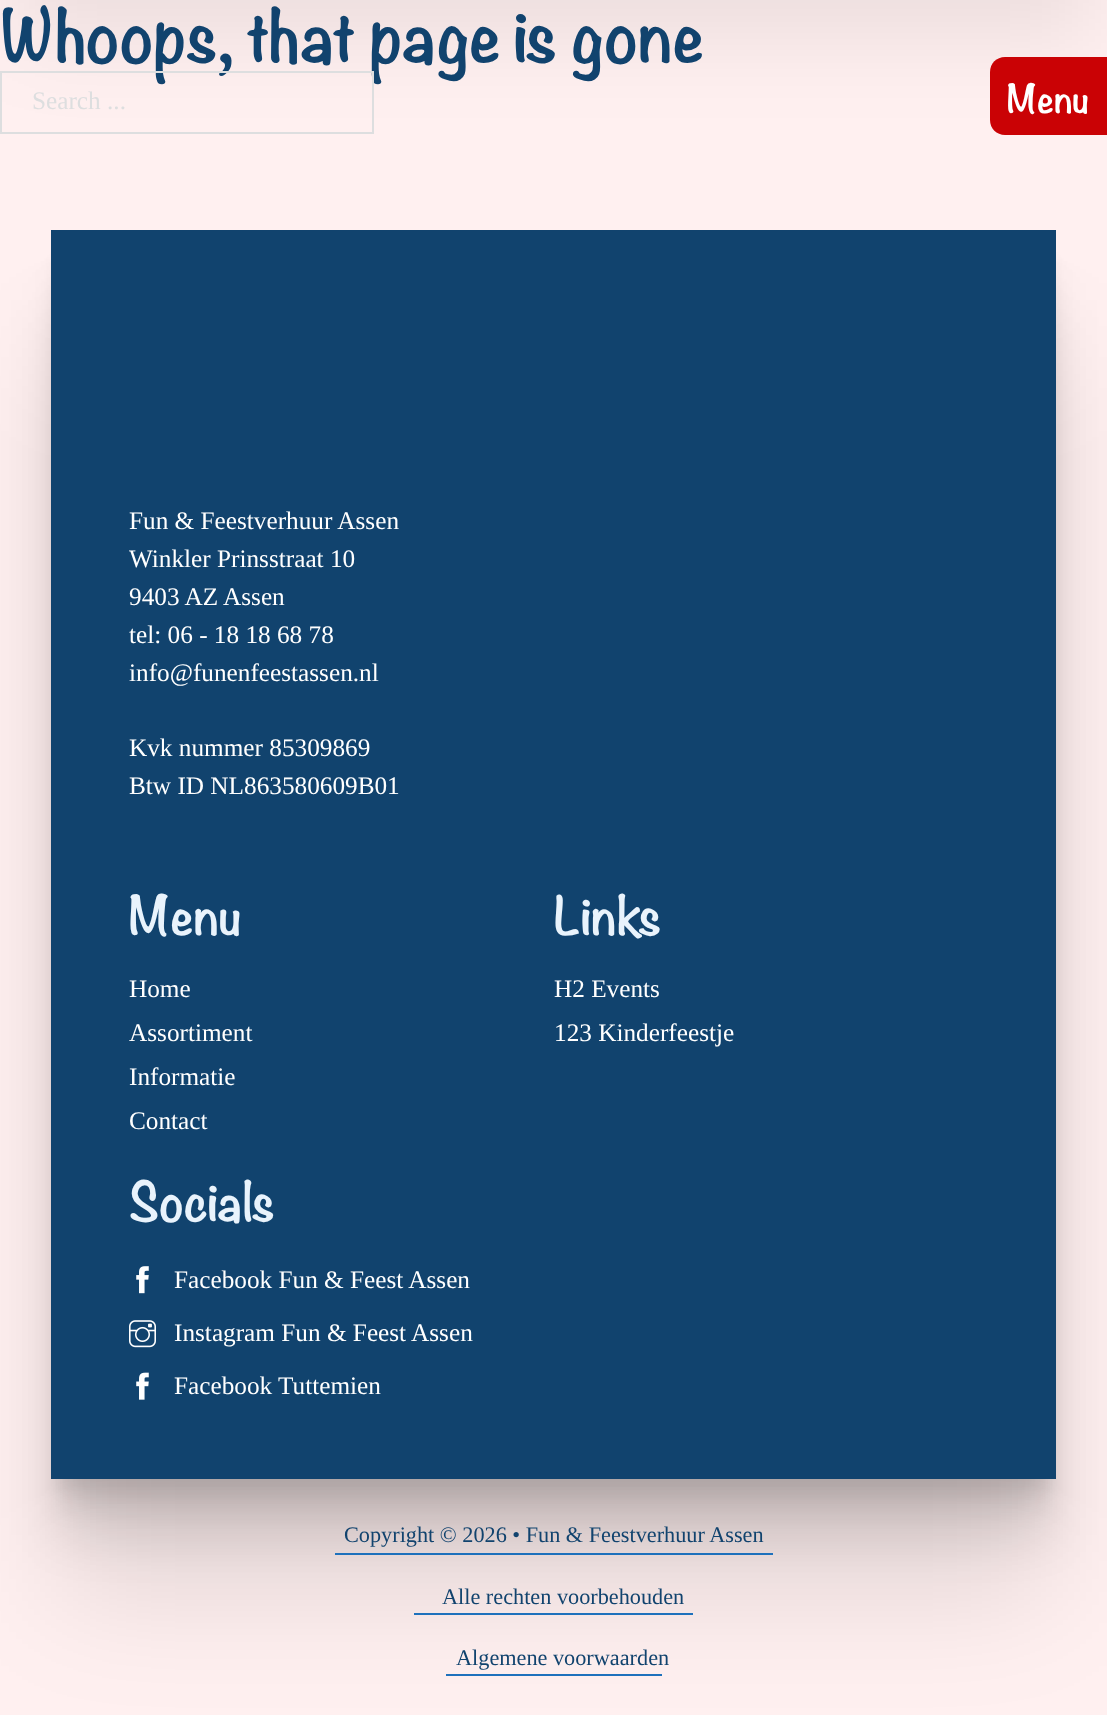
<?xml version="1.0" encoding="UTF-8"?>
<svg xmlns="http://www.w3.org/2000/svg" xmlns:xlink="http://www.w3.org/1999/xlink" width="1107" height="1715">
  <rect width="100%" height="100%" fill="#fff0f0" />
  <rect x="15" y="-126" width="1077" height="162" fill="#000000" fill-opacity="0.08" filter="blur(45px)" />
  <path d="M 1005 57 h 102 v 78 h -102 c -8.5 0 -15 -6.5 -15 -15 v -48 c 0 -8.5 6.5 -15 15 -15 z" fill="#ca0205" />
  <rect x="59" y="357" width="990" height="1235" fill="#000000" fill-opacity="0.11" filter="blur(60px)" />
  <rect x="59" y="300" width="990" height="1235" fill="#000000" fill-opacity="0.1" filter="blur(25px)" />
  <rect x="59" y="270" width="990" height="1235" fill="#000000" fill-opacity="0.08" filter="blur(13.5px)" />
  <rect x="59" y="257" width="990" height="1234" fill="#000000" fill-opacity="0.06" filter="blur(7.5px)" />
  <rect x="51" y="230" width="1005" height="1249" fill="#11436e" />
  <image x="136" y="1266" width="13" height="28" xlink:href="image1.png" />
  <image x="129" y="1320" width="27" height="28" xlink:href="image2.png" />
  <image x="136" y="1372" width="13" height="28" xlink:href="image3.png" />
  <rect x="335" y="1553" width="438" height="2" fill="#1e71bc" />
  <rect x="414" y="1613" width="279" height="2" fill="#1e71bc" />
  <rect x="446" y="1674" width="216" height="2" fill="#1e71bc" />
  <text x="0" y="62" style="font-family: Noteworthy; font-size: 65.4px; font-weight: bold; fill: #11436e">Whoops, that page is gone</text>
  <rect x="1" y="72" width="372" height="61" fill="none" stroke="#dddedf" stroke-width="2" />
  <text x="32" y="109" style="font-family: Liberation Serif; font-size: 25.25px; fill: #dddedf">Search ...</text>
  <text x="1007" y="113" style="font-family: Noteworthy; font-size: 35px; font-weight: bold; fill: #ffffff">Menu</text>
  <text x="129" y="529" style="font-family: Liberation Serif; font-size: 25.25px; fill: #ffffff">Fun &amp; Feestverhuur Assen</text>
  <text x="129" y="567" style="font-family: Liberation Serif; font-size: 25.25px; fill: #ffffff">Winkler Prinsstraat 10</text>
  <text x="129" y="605" style="font-family: Liberation Serif; font-size: 25.25px; fill: #ffffff">9403 AZ Assen</text>
  <text x="129" y="643" style="font-family: Liberation Serif; font-size: 25.25px; fill: #ffffff">tel: 06 - 18 18 68 78</text>
  <text x="129" y="681" style="font-family: Liberation Serif; font-size: 25.25px; fill: #ffffff">info@funenfeestassen.nl</text>
  <text x="129" y="756" style="font-family: Liberation Serif; font-size: 25.25px; fill: #ffffff">Kvk nummer 85309869</text>
  <text x="129" y="794" style="font-family: Liberation Serif; font-size: 25.25px; fill: #ffffff">Btw ID NL863580609B01</text>
  <text x="129" y="935" style="font-family: Noteworthy; font-size: 48px; font-weight: bold; fill: #e9f3fc">Menu</text>
  <text x="129" y="997" style="font-family: Liberation Serif; font-size: 25.25px; fill: #ffffff">Home</text>
  <text x="129" y="1041" style="font-family: Liberation Serif; font-size: 25.25px; fill: #ffffff">Assortiment</text>
  <text x="129" y="1085" style="font-family: Liberation Serif; font-size: 25.25px; fill: #ffffff">Informatie</text>
  <text x="129" y="1129" style="font-family: Liberation Serif; font-size: 25.25px; fill: #ffffff">Contact</text>
  <text x="554" y="935" style="font-family: Noteworthy; font-size: 48px; font-weight: bold; fill: #e9f3fc">Links</text>
  <text x="554" y="997" style="font-family: Liberation Serif; font-size: 25.25px; fill: #ffffff">H2 Events</text>
  <text x="554" y="1041" style="font-family: Liberation Serif; font-size: 25.25px; fill: #ffffff">123 Kinderfeestje</text>
  <text x="129" y="1221" style="font-family: Noteworthy; font-size: 48px; font-weight: bold; fill: #e9f3fc">Socials</text>
  <text x="174" y="1288" style="font-family: Liberation Serif; font-size: 25.25px; fill: #ffffff">Facebook Fun &amp; Feest Assen</text>
  <text x="174" y="1341" style="font-family: Liberation Serif; font-size: 25.25px; fill: #ffffff">Instagram Fun &amp; Feest Assen</text>
  <text x="174" y="1394" style="font-family: Liberation Serif; font-size: 25.25px; fill: #ffffff">Facebook Tuttemien</text>
  <text x="344" y="1542" style="font-family: Liberation Serif; font-size: 22.25px; fill: #11436e">Copyright © 2026 • Fun &amp; Feestverhuur Assen</text>
  <text x="442" y="1604" style="font-family: Liberation Serif; font-size: 22.25px; fill: #11436e">Alle rechten voorbehouden</text>
  <text x="456" y="1665" style="font-family: Liberation Serif; font-size: 22.25px; fill: #11436e">Algemene voorwaarden</text>
</svg>
